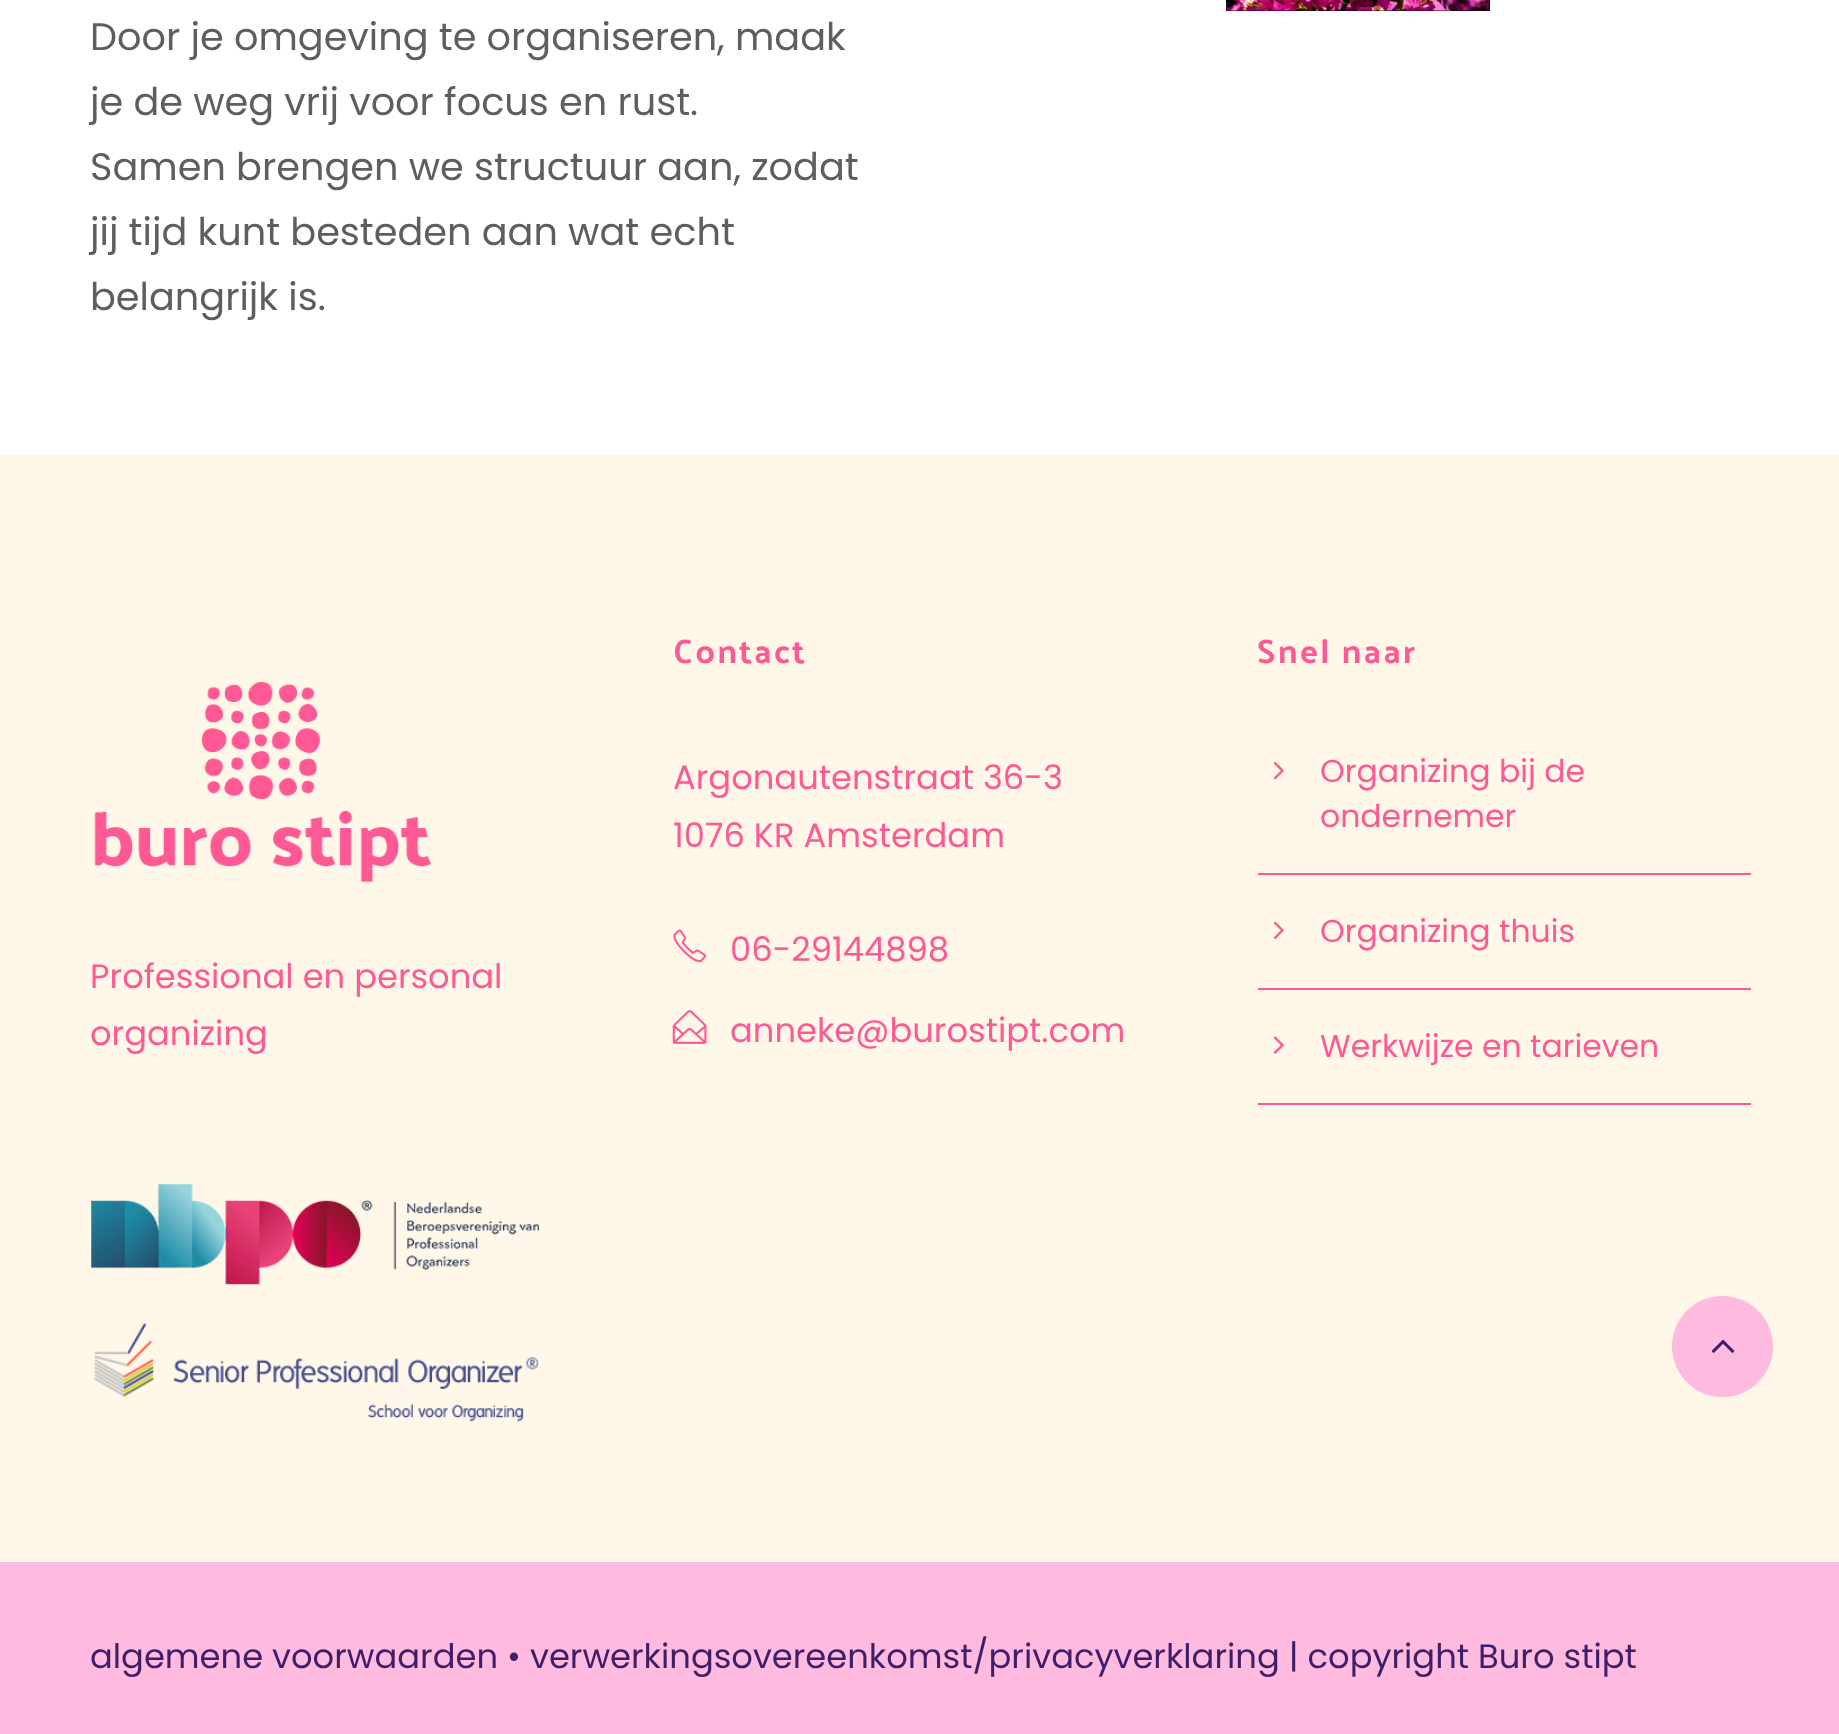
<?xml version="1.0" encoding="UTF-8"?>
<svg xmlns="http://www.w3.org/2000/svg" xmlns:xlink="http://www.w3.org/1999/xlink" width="1839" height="1734">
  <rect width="100%" height="100%" fill="#ffffff" />
  <rect x="1226" width="264" height="11" fill="#000000" />
  <image x="1226" y="0" width="264" height="11" xlink:href="image1.png" />
  <rect y="455" width="1839" height="1107" fill="#fff7e8" />
  <image x="94" y="682" width="337" height="200" xlink:href="image2.png" />
  <image x="91" y="1184" width="448" height="101" xlink:href="image3.png" />
  <image x="94" y="1323" width="445" height="99" xlink:href="image4.png" />
  <image x="673" y="929" width="34" height="34" xlink:href="image5.png" />
  <image x="672" y="1010" width="35" height="34" xlink:href="image6.png" />
  <rect x="1258" y="873" width="493" height="2" fill="#fe5995" />
  <image x="1273" y="761" width="11" height="19" xlink:href="image7.png" />
  <rect x="1258" y="988" width="493" height="2" fill="#fe5995" />
  <image x="1273" y="921" width="11" height="19" xlink:href="image8.png" />
  <rect x="1258" y="1103" width="493" height="2" fill="#fe5995" />
  <image x="1273" y="1036" width="11" height="18" xlink:href="image9.png" />
  <rect y="1562" width="1839" height="172" fill="#ffbadf" />
  <circle cx="1722.5" cy="1346.5" r="50.5" fill="#ffbadf" />
  <image x="1711" y="1339" width="24" height="14" xlink:href="image10.png" />
  <text x="90" y="50" style="font-family: Poppins; font-size: 38.25px; fill: #5e5e5e">Door je omgeving te organiseren, maak</text>
  <text x="90" y="115" style="font-family: Poppins; font-size: 38.25px; fill: #5e5e5e">je de weg vrij voor focus en rust.</text>
  <text x="90" y="180" style="font-family: Poppins; font-size: 38.25px; fill: #5e5e5e">Samen brengen we structuur aan, zodat</text>
  <text x="90" y="245" style="font-family: Poppins; font-size: 38.25px; fill: #5e5e5e">jij tijd kunt besteden aan wat echt</text>
  <text x="90" y="310" style="font-family: Poppins; font-size: 38.25px; fill: #5e5e5e">belangrijk is.</text>
  <text x="90" y="988" style="font-family: Poppins; font-size: 33.75px; fill: #fe5995">Professional en personal</text>
  <text x="90" y="1045" style="font-family: Poppins; font-size: 33.75px; fill: #fe5995">organizing</text>
  <text x="673" y="663" style="font-family: Palanquin Dark; font-size: 33.75px; letter-spacing: 2.25px; fill: #fe5995">Contact</text>
  <text x="673" y="789" style="font-family: Poppins; font-size: 33.75px; fill: #fe5995">Argonautenstraat 36-3</text>
  <text x="673" y="847" style="font-family: Poppins; font-size: 33.75px; fill: #fe5995">1076 KR Amsterdam</text>
  <text x="730" y="961" style="font-family: Poppins; font-size: 33.75px; fill: #fe5995">06-29144898</text>
  <text x="730" y="1042" style="font-family: Poppins; font-size: 33.75px; fill: #fe5995">anneke@burostipt.com</text>
  <text x="1257" y="663" style="font-family: Palanquin Dark; font-size: 33.75px; letter-spacing: 2.25px; fill: #fe5995">Snel naar</text>
  <text x="1320" y="782" style="font-family: Poppins; font-size: 31.5px; fill: #fe5995">Organizing bij de</text>
  <text x="1320" y="827" style="font-family: Poppins; font-size: 31.5px; fill: #fe5995">ondernemer</text>
  <text x="1320" y="942" style="font-family: Poppins; font-size: 31.5px; fill: #fe5995">Organizing thuis</text>
  <text x="1320" y="1057" style="font-family: Poppins; font-size: 31.5px; fill: #fe5995">Werkwijze en tarieven</text>
  <text x="90" y="1668" style="font-family: Poppins; font-size: 33.75px; fill: #3e1e69">algemene voorwaarden • verwerkingsovereenkomst/privacyverklaring | copyright Buro stipt</text>
</svg>
